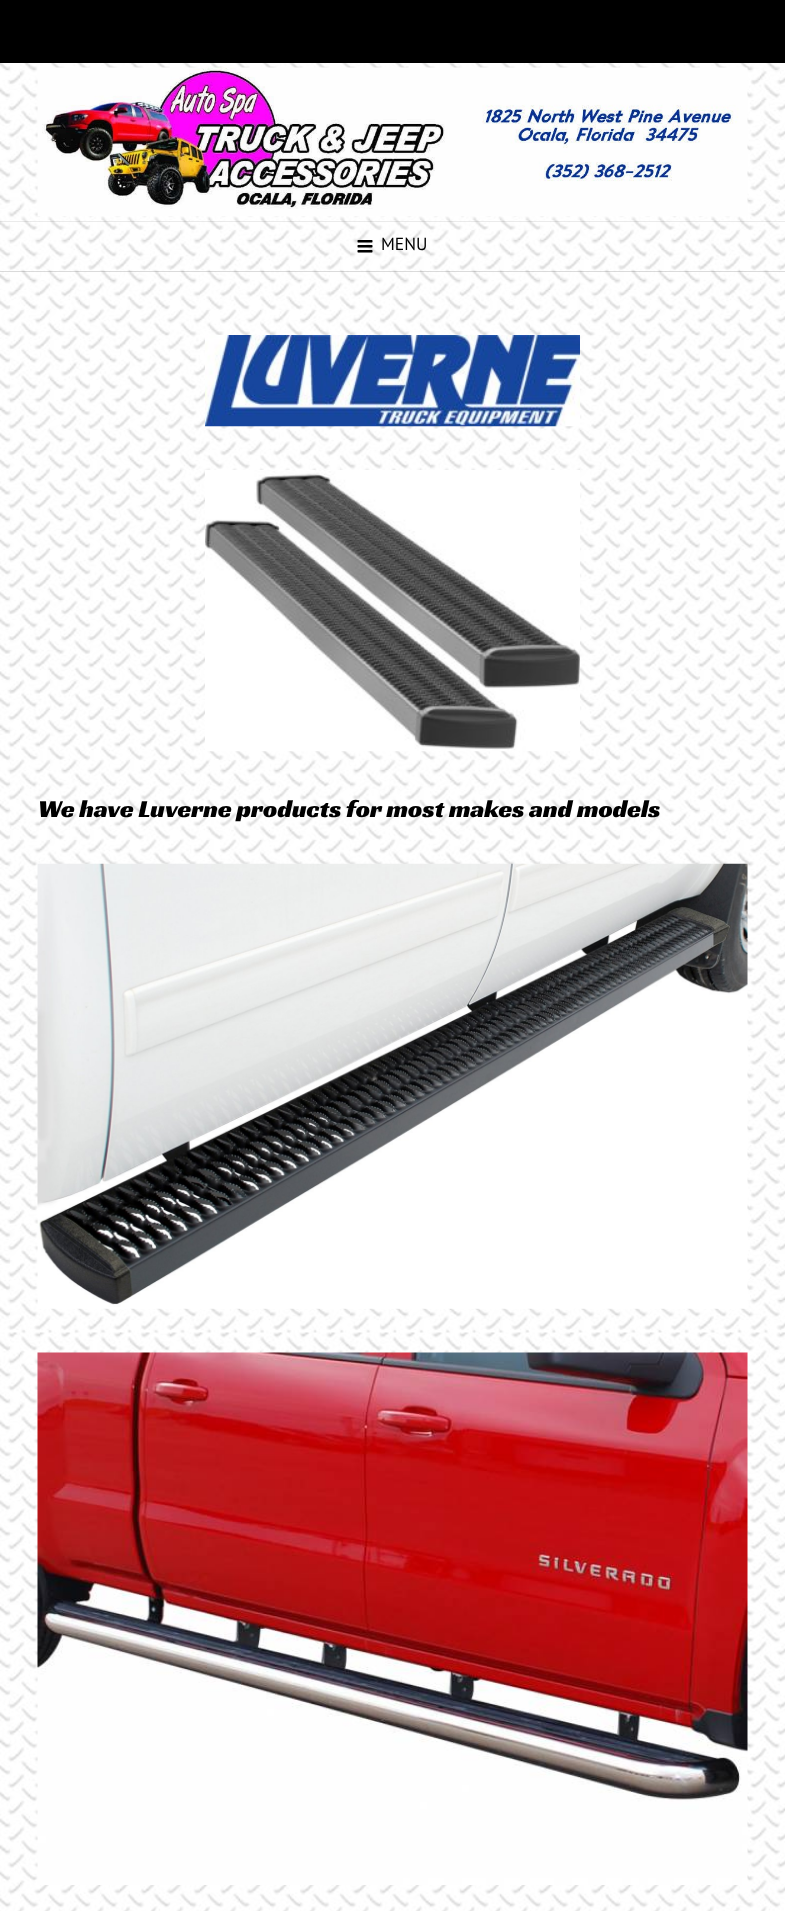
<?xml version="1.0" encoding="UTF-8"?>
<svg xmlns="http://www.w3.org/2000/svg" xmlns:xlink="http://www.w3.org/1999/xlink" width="785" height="1911">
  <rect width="100%" height="100%" fill="#ffffff" />
  <image x="0" y="63" width="785" height="1848" xlink:href="image1.png" />
  <rect y="271" width="785" height="1" fill="#000000" fill-opacity="0.14" />
  <rect width="785" height="63" fill="#000000" />
  <image x="37" y="67" width="711" height="150" xlink:href="image2.png" />
  <rect y="221" width="785" height="1" fill="#000000" fill-opacity="0.08" />
  <image x="357" y="240" width="16" height="13" xlink:href="image3.png" />
  <image x="205" y="335" width="375" height="92" xlink:href="image4.png" />
  <image x="205" y="470" width="375" height="282" xlink:href="image5.png" />
  <image x="37" y="863" width="711" height="446" xlink:href="image6.png" />
  <image x="37" y="1352" width="711" height="533" xlink:href="image7.png" />
  <text x="381" y="250" style="font-family: PT Sans; font-size: 17.5px; fill: #000000">MENU</text>
  <text x="38" y="817" style="font-family: Racing Sans One; font-size: 25px; fill: #000000">We have Luverne products for most makes and models</text>
</svg>
